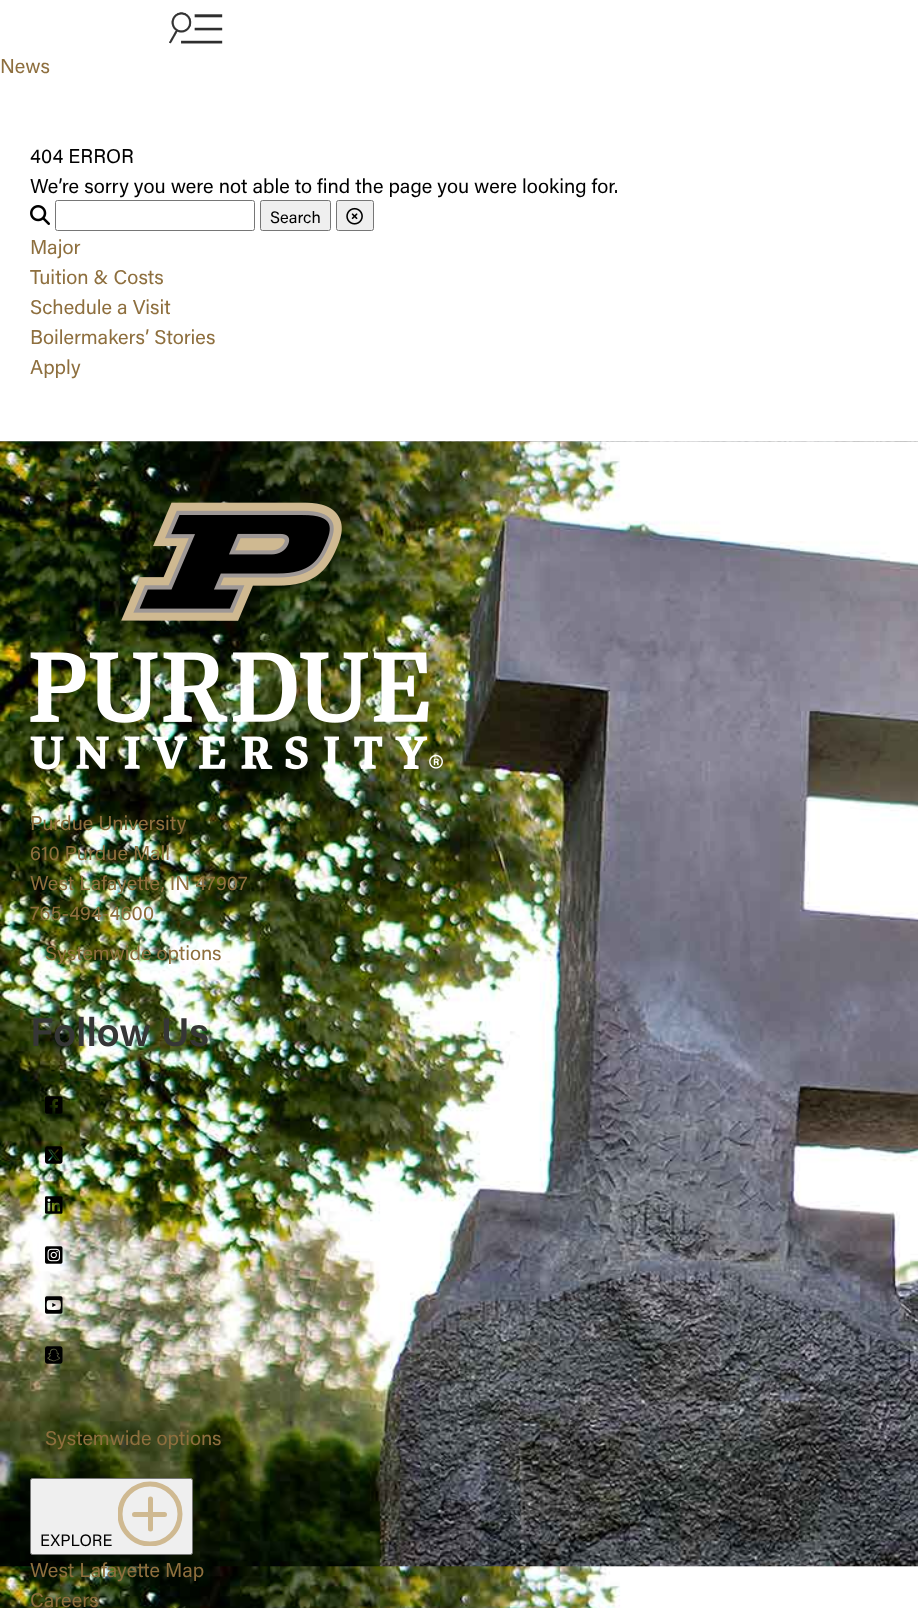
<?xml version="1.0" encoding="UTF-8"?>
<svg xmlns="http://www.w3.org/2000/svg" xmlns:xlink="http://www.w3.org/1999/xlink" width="918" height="1608">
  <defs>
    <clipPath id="clip1"><rect x="118" y="1481" width="65" height="65" /></clipPath>
  </defs>
  <rect width="100%" height="100%" fill="#ffffff" />
  <image x="169" y="12" width="54" height="32" xlink:href="image1.png" />
  <image x="30" y="205" width="20" height="20" xlink:href="image2.png" />
  <rect x="55.5" y="200.5" width="199" height="30" rx="2" fill="none" stroke="#767676" />
  <rect x="260.5" y="200.5" width="70" height="30" rx="2" fill="#efefef" stroke="#767676" />
  <rect x="336.5" y="200.5" width="37" height="30" rx="2" fill="#efefef" stroke="#767676" />
  <image x="346" y="207" width="17" height="18" xlink:href="image3.png" />
  <image x="0" y="441" width="918" height="1167" xlink:href="image4.png" />
  <image x="30" y="502" width="413" height="268" xlink:href="image5.png" />
  <image x="45" y="1096" width="18" height="18" xlink:href="image6.png" />
  <image x="45" y="1146" width="18" height="18" xlink:href="image7.png" />
  <image x="45" y="1196" width="18" height="18" xlink:href="image8.png" />
  <image x="45" y="1246" width="18" height="18" xlink:href="image9.png" />
  <image x="45" y="1296" width="18" height="18" xlink:href="image10.png" />
  <image x="45" y="1346" width="18" height="18" xlink:href="image11.png" />
  <rect x="30.5" y="1478.5" width="162" height="76" rx="2" fill="#efefef" stroke="#767676" />
  <g clip-path="url(#clip1)">
    <circle cx="150" cy="1514" r="30" fill="none" stroke="#cfb991" stroke-width="5" />
  </g>
  <path d="M 150.5 1499 v 30 m -16 -14.5 h 30" fill="none" stroke="#cfb991" stroke-width="5" stroke-linecap="round" stroke-linejoin="round" />
  <text x="0" y="73" style="font-family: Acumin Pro; font-size: 20px; fill: #8e6f3e">News</text>
  <text x="30" y="163" style="font-family: Acumin Pro; font-size: 20px; fill: #000000">404 ERROR</text>
  <text x="30" y="193" style="font-family: Acumin Pro; font-size: 20px; fill: #000000">We’re sorry you were not able to find the page you were looking for.</text>
  <text x="270" y="223" style="font-family: Acumin Pro; font-size: 16.5px; fill: #000000">Search</text>
  <text x="30" y="254" style="font-family: Acumin Pro; font-size: 20px; fill: #8e6f3e">Major</text>
  <text x="30" y="284" style="font-family: Acumin Pro; font-size: 20px; fill: #8e6f3e">Tuition &amp; Costs</text>
  <text x="30" y="314" style="font-family: Acumin Pro; font-size: 20px; fill: #8e6f3e">Schedule a Visit</text>
  <text x="30" y="344" style="font-family: Acumin Pro; font-size: 20px; fill: #8e6f3e">Boilermakers’ Stories</text>
  <text x="30" y="374" style="font-family: Acumin Pro; font-size: 20px; fill: #8e6f3e">Apply</text>
  <text x="30" y="830" style="font-family: Acumin Pro; font-size: 20px; fill: #8e6f3e">Purdue University</text>
  <text x="30" y="860" style="font-family: Acumin Pro; font-size: 20px; fill: #8e6f3e">610 Purdue Mall</text>
  <text x="30" y="890" style="font-family: Acumin Pro; font-size: 20px; fill: #8e6f3e">West Lafayette, IN 47907</text>
  <text x="30" y="920" style="font-family: Acumin Pro; font-size: 20px; fill: #8e6f3e">765-494-4600</text>
  <text x="45" y="960" style="font-family: Acumin Pro; font-size: 20px; fill: #8e6f3e">Systemwide options</text>
  <text x="30" y="1046" style="font-family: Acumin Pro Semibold; font-size: 40px; font-weight: 600; fill: #363636">Follow Us</text>
  <text x="45" y="1445" style="font-family: Acumin Pro; font-size: 20px; fill: #8e6f3e">Systemwide options</text>
  <text x="40" y="1546" style="font-family: Acumin Pro; font-size: 16.5px; fill: #000000">EXPLORE</text>
  <text x="30" y="1577" style="font-family: Acumin Pro; font-size: 20px; fill: #8e6f3e">West Lafayette Map</text>
  <text x="30" y="1607" style="font-family: Acumin Pro; font-size: 20px; fill: #8e6f3e">Careers</text>
</svg>
